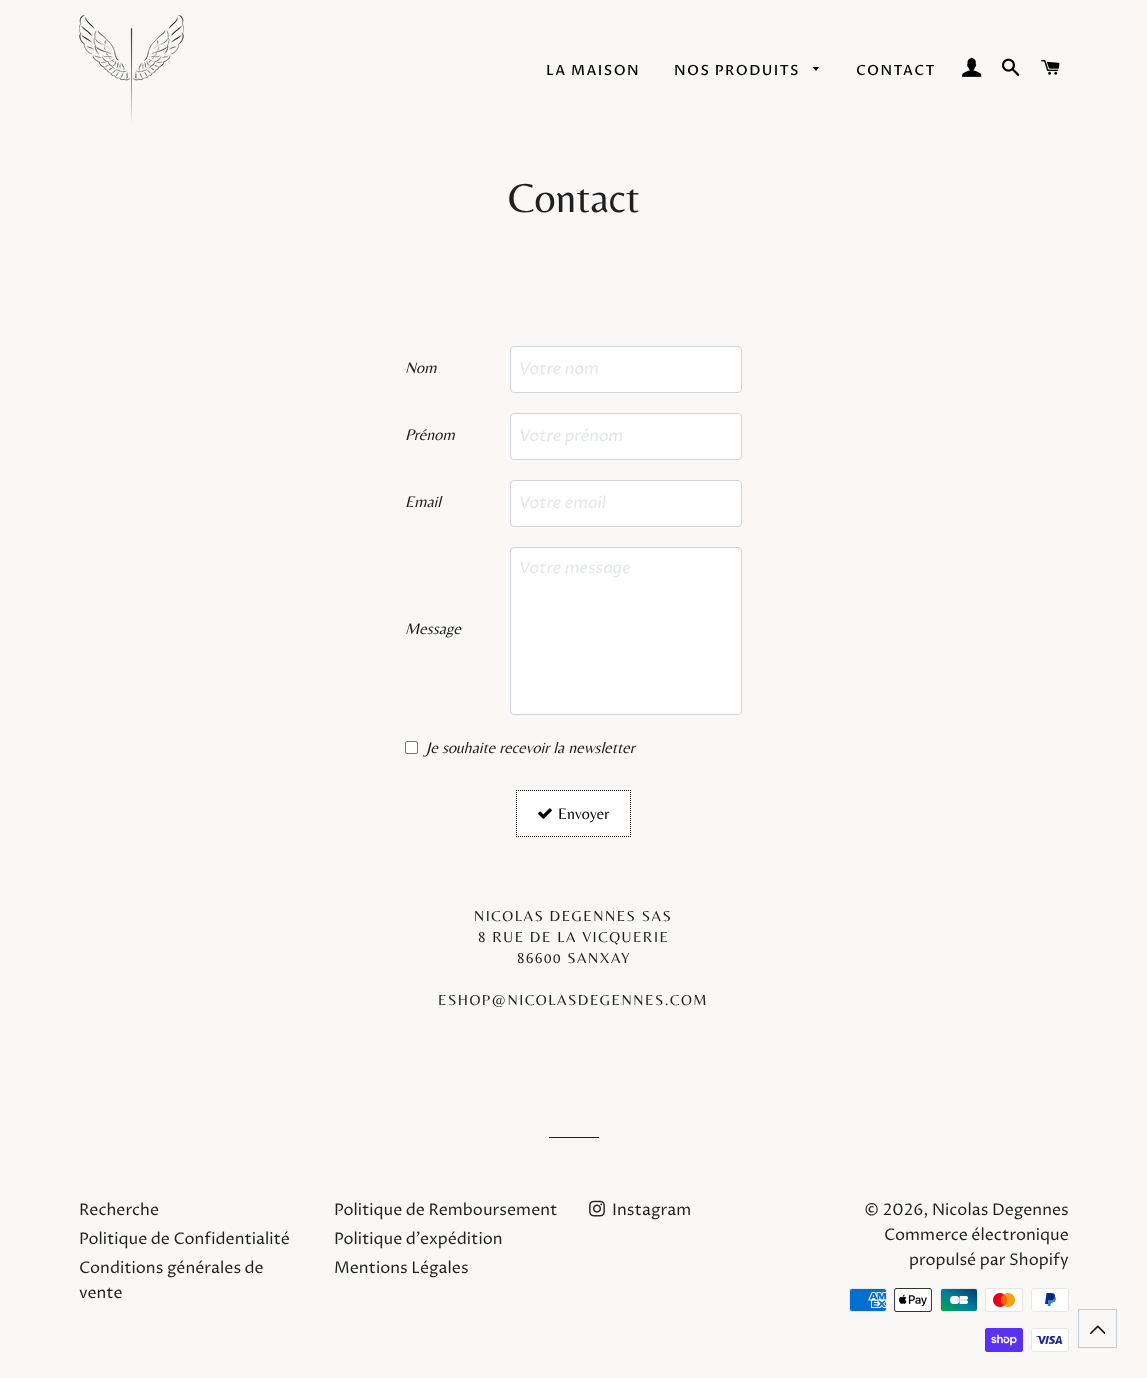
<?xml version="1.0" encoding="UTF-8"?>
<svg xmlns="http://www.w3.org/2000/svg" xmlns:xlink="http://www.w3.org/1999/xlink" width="1147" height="1378">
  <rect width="100%" height="100%" fill="#f9f8f7" />
  <image x="79" y="15" width="105" height="108" xlink:href="image1.png" />
  <path d="M 812.5 67 l 3.5 4 l 3 -4 z" fill="#000000" />
  <image x="962" y="57" width="20" height="20" xlink:href="image2.png" />
  <image x="1002" y="58" width="18" height="18" xlink:href="image3.png" />
  <image x="1041" y="60" width="19" height="15" xlink:href="image4.png" />
  <rect x="510.5" y="346.5" width="231" height="46" rx="3.5" fill="#ffffff" stroke="#d1d5db" />
  <rect x="510.5" y="413.5" width="231" height="46" rx="3.5" fill="#ffffff" stroke="#d1d5db" />
  <rect x="510.5" y="480.5" width="231" height="46" rx="3.5" fill="#ffffff" stroke="#d1d5db" />
  <rect x="510.5" y="547.5" width="231" height="167" rx="3.5" fill="#ffffff" stroke="#d1d5db" />
  <rect x="405.5" y="741.5" width="12" height="12" rx="1.5" fill="#ffffff" stroke="#767676" />
  <rect x="516" y="790" width="115" height="47" fill="#ffffff" />
  <path d="M 516 790.5 h 115" fill="none" stroke="#000000" stroke-dasharray="1 1" />
  <path d="M 630.5 790 v 47" fill="none" stroke="#000000" stroke-dasharray="1 1" />
  <path d="M 516 836.5 h 115" fill="none" stroke="#000000" stroke-dasharray="1 1" />
  <path d="M 516.5 790 v 47" fill="none" stroke="#000000" stroke-dasharray="1 1" />
  <image x="538" y="808" width="14" height="11" xlink:href="image5.png" />
  <rect x="549" y="1137" width="50" height="1" fill="#1f2021" />
  <image x="589" y="1200" width="16" height="17" xlink:href="image6.png" />
  <image x="849" y="1288" width="38" height="24" xlink:href="image7.png" />
  <image x="894" y="1288" width="38" height="24" xlink:href="image8.png" />
  <image x="940" y="1288" width="38" height="24" xlink:href="image9.png" />
  <image x="985" y="1288" width="38" height="24" xlink:href="image10.png" />
  <image x="1031" y="1288" width="38" height="24" xlink:href="image11.png" />
  <image x="985" y="1328" width="38" height="24" xlink:href="image12.png" />
  <image x="1031" y="1328" width="38" height="24" xlink:href="image13.png" />
  <rect x="1078.5" y="1309.5" width="38" height="38" fill="none" stroke="#c4cdd5" />
  <image x="1090" y="1325" width="15" height="9" xlink:href="image14.png" />
  <text x="546" y="75" style="font-family: Proza Libre; font-size: 14px; font-weight: 500; letter-spacing: 1.4px; fill: #000000">LA MAISON</text>
  <text x="674" y="75" style="font-family: Proza Libre; font-size: 14px; font-weight: 500; letter-spacing: 1.4px; fill: #000000">NOS PRODUITS</text>
  <text x="856" y="75" style="font-family: Proza Libre; font-size: 14px; font-weight: 500; letter-spacing: 1.4px; fill: #000000">CONTACT</text>
  <text x="508" y="212" style="font-family: Belleza; font-size: 42px; fill: #1f2021">Contact</text>
  <text x="405" y="373" style="font-family: Belleza; font-size: 16px; font-style: italic; fill: #1f2021">Nom</text>
  <text x="519" y="374" style="font-family: Proza Libre; font-size: 16px; font-style: italic; fill: #e3e6e9">Votre nom</text>
  <text x="405" y="440" style="font-family: Belleza; font-size: 16px; font-style: italic; fill: #1f2021">Prénom</text>
  <text x="519" y="441" style="font-family: Proza Libre; font-size: 16px; font-style: italic; fill: #e3e6e9">Votre prénom</text>
  <text x="405" y="507" style="font-family: Belleza; font-size: 16px; font-style: italic; fill: #1f2021">Email</text>
  <text x="519" y="508" style="font-family: Proza Libre; font-size: 16px; font-style: italic; fill: #e3e6e9">Votre email</text>
  <text x="519" y="573" style="font-family: Proza Libre; font-size: 16px; font-style: italic; fill: #e3e6e9">Votre message</text>
  <text x="405" y="634" style="font-family: Belleza; font-size: 16px; font-style: italic; fill: #1f2021">Message</text>
  <text x="426" y="753" style="font-family: Belleza; font-size: 16px; font-style: italic; fill: #1f2021">Je souhaite recevoir la newsletter</text>
  <text x="558" y="819" style="font-family: Belleza; font-size: 16px; fill: #000000">Envoyer</text>
  <text x="474" y="921" style="font-family: Belleza; font-size: 15px; letter-spacing: 1.5px; fill: #1f2021">NICOLAS DEGENNES SAS</text>
  <text x="478" y="942" style="font-family: Belleza; font-size: 15px; letter-spacing: 1.5px; fill: #1f2021">8 RUE DE LA VICQUERIE</text>
  <text x="517" y="963" style="font-family: Belleza; font-size: 15px; letter-spacing: 1.5px; fill: #1f2021">86600 SANXAY</text>
  <text x="438" y="1005" style="font-family: Belleza; font-size: 15px; letter-spacing: 1.5px; fill: #1f2021">ESHOP@NICOLASDEGENNES.COM</text>
  <text x="79" y="1215" style="font-family: Proza Libre; font-size: 16px; fill: #1f2021">Recherche</text>
  <text x="79" y="1244" style="font-family: Proza Libre; font-size: 16px; fill: #1f2021">Politique de Confidentialité</text>
  <text x="79" y="1273" style="font-family: Proza Libre; font-size: 16px; fill: #1f2021">Conditions générales de</text>
  <text x="79" y="1298" style="font-family: Proza Libre; font-size: 16px; fill: #1f2021">vente</text>
  <text x="334" y="1215" style="font-family: Proza Libre; font-size: 16px; fill: #1f2021">Politique de Remboursement</text>
  <text x="334" y="1244" style="font-family: Proza Libre; font-size: 16px; fill: #1f2021">Politique d'expédition</text>
  <text x="334" y="1273" style="font-family: Proza Libre; font-size: 16px; fill: #1f2021">Mentions Légales</text>
  <text x="612" y="1215" style="font-family: Proza Libre; font-size: 16px; fill: #1f2021">Instagram</text>
  <text x="864" y="1215" style="font-family: Proza Libre; font-size: 16px; fill: #1f2021">© 2026, Nicolas Degennes</text>
  <text x="884" y="1240" style="font-family: Proza Libre; font-size: 16px; fill: #1f2021">Commerce électronique</text>
  <text x="909" y="1265" style="font-family: Proza Libre; font-size: 16px; fill: #1f2021">propulsé par Shopify</text>
</svg>
